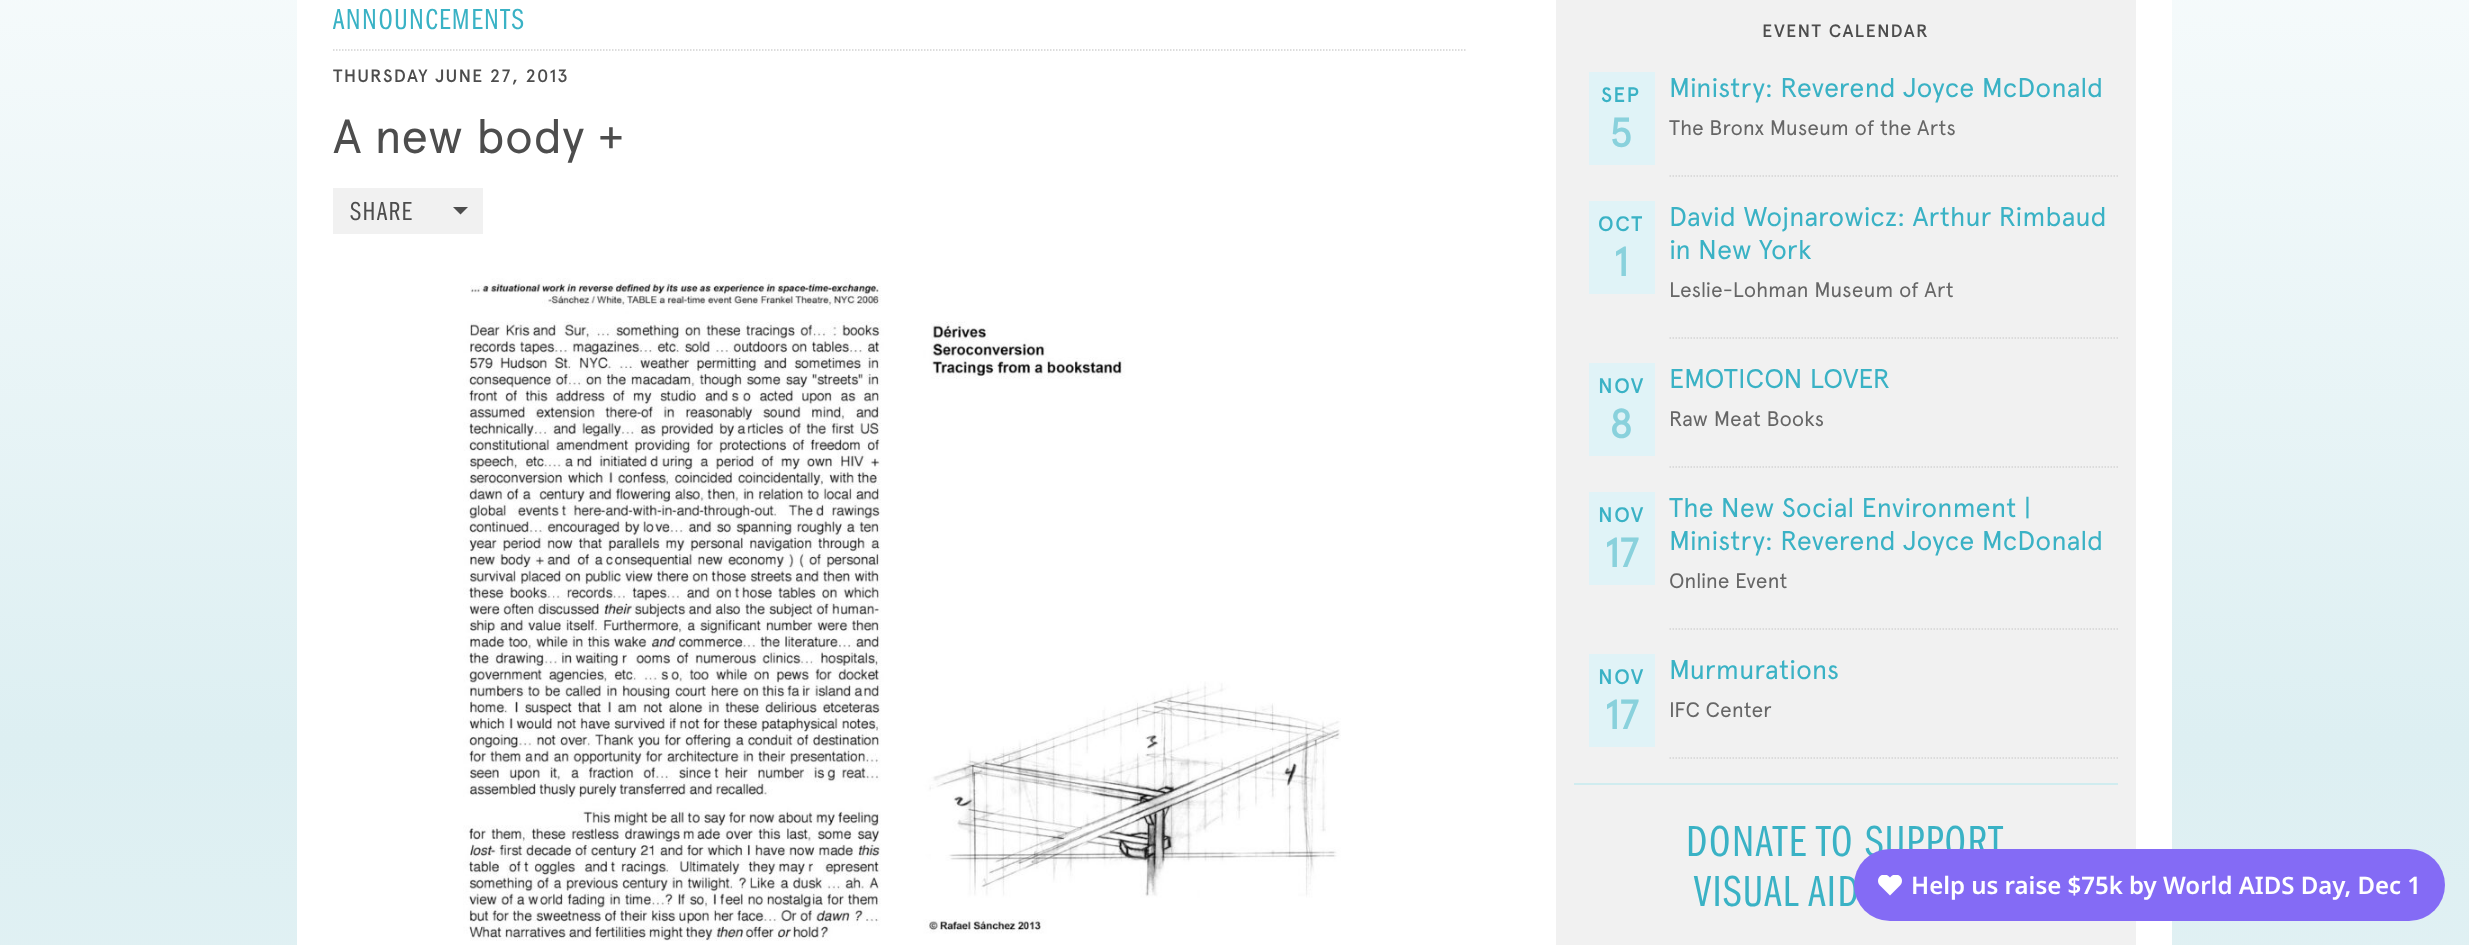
<?xml version="1.0" encoding="UTF-8"?>
<svg xmlns="http://www.w3.org/2000/svg" xmlns:xlink="http://www.w3.org/1999/xlink" width="2469" height="945">
  <defs>
    <linearGradient id="g1" gradientUnits="userSpaceOnUse" x1="1234" y1="-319" x2="1235" y2="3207"><stop offset="0" stop-color="#ffffff" /><stop offset="0.3" stop-color="#ddeff2" /><stop offset="1" stop-color="#ffffff" /></linearGradient>
  </defs>
  <rect width="100%" height="100%" fill="#ffffff" />
  <rect width="2469" height="945" fill="url(#g1)" />
  <rect x="297" width="1875" height="945" fill="#ffffff" />
  <path d="M 333 50 h 1132.5" fill="none" stroke="#d2d2d2" stroke-width="1.5" stroke-dasharray="1.5 1.5" />
  <rect x="333" y="188" width="150" height="46" fill="#f1f1f1" />
  <path d="M 453 207 h 15 l -7.5 7.5 z" fill="#4d4d4d" />
  <image x="463" y="278" width="878" height="663" xlink:href="image1.png" />
  <rect x="1556" width="580" height="945" fill="#f1f1f1" />
  <rect x="1589" y="72" width="66" height="93" fill="#e0f3f7" />
  <path d="M 1669.5 176 h 448.5" fill="none" stroke="#d4d4d4" stroke-width="1.5" stroke-dasharray="1.5 1.5" />
  <rect x="1589" y="201" width="66" height="93" fill="#e0f3f7" />
  <path d="M 1669.5 338 h 448.5" fill="none" stroke="#d4d4d4" stroke-width="1.5" stroke-dasharray="1.5 1.5" />
  <rect x="1589" y="363" width="66" height="93" fill="#e0f3f7" />
  <path d="M 1669.5 467 h 448.5" fill="none" stroke="#d4d4d4" stroke-width="1.5" stroke-dasharray="1.5 1.5" />
  <rect x="1589" y="492" width="66" height="93" fill="#e0f3f7" />
  <path d="M 1669.5 629 h 448.5" fill="none" stroke="#d4d4d4" stroke-width="1.5" stroke-dasharray="1.5 1.5" />
  <rect x="1589" y="654" width="66" height="93" fill="#e0f3f7" />
  <path d="M 1669.5 758 h 448.5" fill="none" stroke="#d4d4d4" stroke-width="1.5" stroke-dasharray="1.5 1.5" />
  <rect x="1574" y="783" width="544" height="2" fill="#d0ecef" />
  <text x="333" y="29" style="font-family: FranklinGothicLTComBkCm; font-size: 30px; letter-spacing: 1.5px; fill: #3ab2c5">ANNOUNCEMENTS</text>
  <text x="333" y="82" style="font-family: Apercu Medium; font-size: 18px; font-weight: 500; letter-spacing: 1.5px; fill: #4d4d4d">THURSDAY JUNE 27, 2013</text>
  <text x="333" y="153" style="font-family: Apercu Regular; font-size: 48px; fill: #4d4d4d">A new body +</text>
  <text x="350" y="220" style="font-family: FranklinGothicLTComBkCm; font-size: 27px; letter-spacing: 1.5px; fill: #4d4d4d">SHARE</text>
  <text x="1762" y="37" style="font-family: Apercu Medium; font-size: 18px; font-weight: 500; letter-spacing: 1.5px; fill: #4d4d4d">EVENT CALENDAR</text>
  <text x="1601" y="102" style="font-family: Apercu Medium; font-size: 21px; font-weight: 500; letter-spacing: 1.5px; fill: #3ab2c5">SEP</text>
  <text x="1609" y="147" style="font-family: Apercu Medium; font-size: 42px; font-weight: 500; letter-spacing: -1px; fill: #89d1dc">5</text>
  <text x="1669" y="97" style="font-family: Apercu Regular; font-size: 27px; fill: #3ab2c5">Ministry: Reverend Joyce McDonald</text>
  <text x="1669" y="135" style="font-family: Apercu Regular; font-size: 21px; fill: #666666">The Bronx Museum of the Arts</text>
  <text x="1598" y="231" style="font-family: Apercu Medium; font-size: 21px; font-weight: 500; letter-spacing: 1.5px; fill: #3ab2c5">OCT</text>
  <text x="1613" y="276" style="font-family: Apercu Medium; font-size: 42px; font-weight: 500; letter-spacing: -1px; fill: #89d1dc">1</text>
  <text x="1669" y="226" style="font-family: Apercu Regular; font-size: 27px; fill: #3ab2c5">David Wojnarowicz: Arthur Rimbaud</text>
  <text x="1669" y="259" style="font-family: Apercu Regular; font-size: 27px; fill: #3ab2c5">in New York</text>
  <text x="1669" y="297" style="font-family: Apercu Regular; font-size: 21px; fill: #666666">Leslie-Lohman Museum of Art</text>
  <text x="1598" y="393" style="font-family: Apercu Medium; font-size: 21px; font-weight: 500; letter-spacing: 1.5px; fill: #3ab2c5">NOV</text>
  <text x="1609" y="438" style="font-family: Apercu Medium; font-size: 42px; font-weight: 500; letter-spacing: -1px; fill: #89d1dc">8</text>
  <text x="1669" y="388" style="font-family: Apercu Regular; font-size: 27px; fill: #3ab2c5">EMOTICON LOVER</text>
  <text x="1669" y="426" style="font-family: Apercu Regular; font-size: 21px; fill: #666666">Raw Meat Books</text>
  <text x="1598" y="522" style="font-family: Apercu Medium; font-size: 21px; font-weight: 500; letter-spacing: 1.5px; fill: #3ab2c5">NOV</text>
  <text x="1604" y="567" style="font-family: Apercu Medium; font-size: 42px; font-weight: 500; letter-spacing: -1px; fill: #89d1dc">17</text>
  <text x="1669" y="517" style="font-family: Apercu Regular; font-size: 27px; fill: #3ab2c5">The New Social Environment |</text>
  <text x="1669" y="550" style="font-family: Apercu Regular; font-size: 27px; fill: #3ab2c5">Ministry: Reverend Joyce McDonald</text>
  <text x="1669" y="588" style="font-family: Apercu Regular; font-size: 21px; fill: #666666">Online Event</text>
  <text x="1598" y="684" style="font-family: Apercu Medium; font-size: 21px; font-weight: 500; letter-spacing: 1.5px; fill: #3ab2c5">NOV</text>
  <text x="1604" y="729" style="font-family: Apercu Medium; font-size: 42px; font-weight: 500; letter-spacing: -1px; fill: #89d1dc">17</text>
  <text x="1669" y="679" style="font-family: Apercu Regular; font-size: 27px; fill: #3ab2c5">Murmurations</text>
  <text x="1669" y="717" style="font-family: Apercu Regular; font-size: 21px; fill: #666666">IFC Center</text>
  <text x="1686" y="856" style="font-family: FranklinGothicLTComBkCm; font-size: 45px; letter-spacing: 1.5px; fill: #3ab2c5">DONATE TO SUPPORT</text>
  <text x="1694" y="906" style="font-family: FranklinGothicLTComBkCm; font-size: 45px; letter-spacing: 1.5px; fill: #3ab2c5">VISUAL AID</text>
  <rect x="1854" y="849" width="591" height="72" rx="36" fill="#846bf5" />
  <image x="1878" y="875" width="24" height="21" xlink:href="image2.png" />
  <text x="1911" y="894" style="font-family: Noto Sans; font-size: 24px; font-weight: 600; fill: #ffffff">Help us raise $75k by World AIDS Day, Dec 1</text>
</svg>
